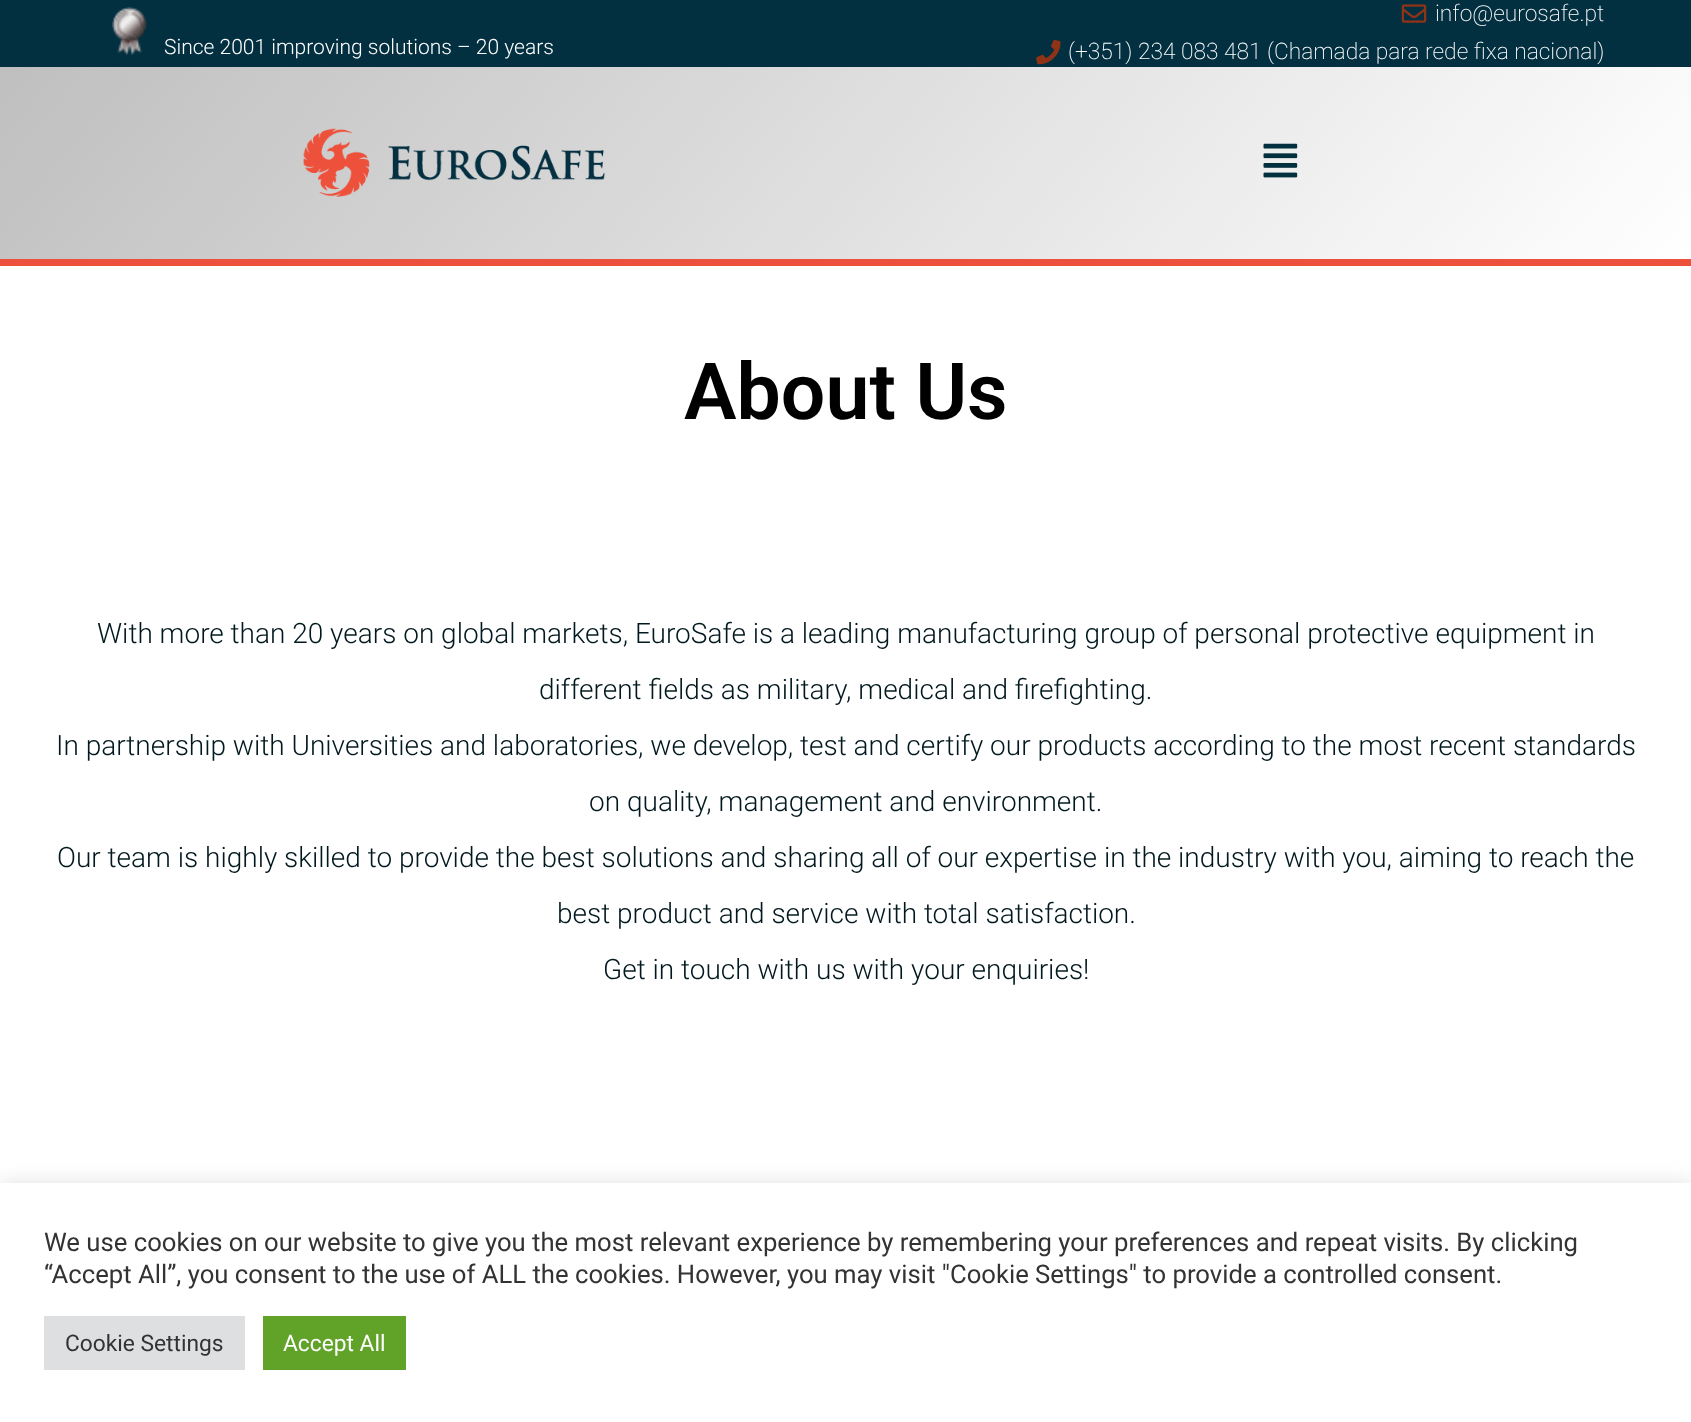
<?xml version="1.0" encoding="UTF-8"?>
<svg xmlns="http://www.w3.org/2000/svg" xmlns:xlink="http://www.w3.org/1999/xlink" width="1691" height="1422">
  <defs>
    <linearGradient id="g1" gradientUnits="userSpaceOnUse" x1="302" y1="-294" x2="1390" y2="619"><stop offset="0" stop-color="#bfbfbf" /><stop offset="1" stop-color="#ffffff" /></linearGradient>
  </defs>
  <rect width="100%" height="100%" fill="#ffffff" />
  <rect width="1691" height="67" fill="#033041" />
  <image x="112" y="7" width="35" height="48" xlink:href="image1.png" />
  <image x="1401" y="4" width="26" height="19" xlink:href="image2.png" />
  <image x="1036" y="39" width="25" height="26" xlink:href="image3.png" />
  <rect y="67" width="1691" height="192" fill="url(#g1)" />
  <rect y="259" width="1691" height="7" fill="#ee513b" />
  <image x="303" y="128" width="302" height="69" xlink:href="image4.png" />
  <image x="1263" y="143" width="35" height="35" xlink:href="image5.png" />
  <rect y="1181" width="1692" height="240" fill="#acabab" fill-opacity="0.3" filter="blur(9px)" />
  <rect y="1183" width="1691" height="239" fill="#ffffff" />
  <rect x="44" y="1316" width="201" height="54" fill="#dedfe0" />
  <rect x="263" y="1316" width="143" height="54" fill="#61a229" />
  <text x="164" y="54" style="font-family: Roboto; font-size: 21px; font-weight: 300; fill: #ffffff">Since 2001 improving solutions – 20 years</text>
  <text x="1435" y="21" style="font-family: Roboto; font-size: 22.75px; font-weight: 200; fill: #ffffff">info@eurosafe.pt</text>
  <text x="1068" y="59" style="font-family: Roboto; font-size: 22.75px; font-weight: 200; fill: #ffffff">(+351) 234 083 481 (Chamada para rede fixa nacional)</text>
  <text x="684" y="419" style="font-family: Roboto; font-size: 78.75px; font-weight: 600; fill: #000000">About Us</text>
  <text x="97" y="643" style="font-family: Roboto; font-size: 28px; font-weight: 300; fill: #01181e">With more than 20 years on global markets, EuroSafe is a leading manufacturing group of personal protective equipment in</text>
  <text x="539" y="699" style="font-family: Roboto; font-size: 28px; font-weight: 300; fill: #01181e">different fields as military, medical and firefighting.</text>
  <text x="56" y="755" style="font-family: Roboto; font-size: 28px; font-weight: 300; fill: #01181e">In partnership with Universities and laboratories, we develop, test and certify our products according to the most recent standards</text>
  <text x="589" y="811" style="font-family: Roboto; font-size: 28px; font-weight: 300; fill: #01181e">on quality, management and environment.</text>
  <text x="57" y="867" style="font-family: Roboto; font-size: 28px; font-weight: 300; fill: #01181e">Our team is highly skilled to provide the best solutions and sharing all of our expertise in the industry with you, aiming to reach the</text>
  <text x="557" y="923" style="font-family: Roboto; font-size: 28px; font-weight: 300; fill: #01181e">best product and service with total satisfaction.</text>
  <text x="603" y="979" style="font-family: Roboto; font-size: 28px; font-weight: 300; fill: #01181e">Get in touch with us with your enquiries!</text>
  <text x="44" y="1251" style="font-family: Roboto; font-size: 25.67px; fill: #333333">We use cookies on our website to give you the most relevant experience by remembering your preferences and repeat visits. By clicking</text>
  <text x="44" y="1283" style="font-family: Roboto; font-size: 25.67px; fill: #333333">“Accept All”, you consent to the use of ALL the cookies. However, you may visit "Cookie Settings" to provide a controlled consent.</text>
  <text x="65" y="1351" style="font-family: Roboto; font-size: 22.75px; fill: #333333">Cookie Settings</text>
  <text x="283" y="1351" style="font-family: Roboto; font-size: 22.75px; fill: #ffffff">Accept All</text>
</svg>
